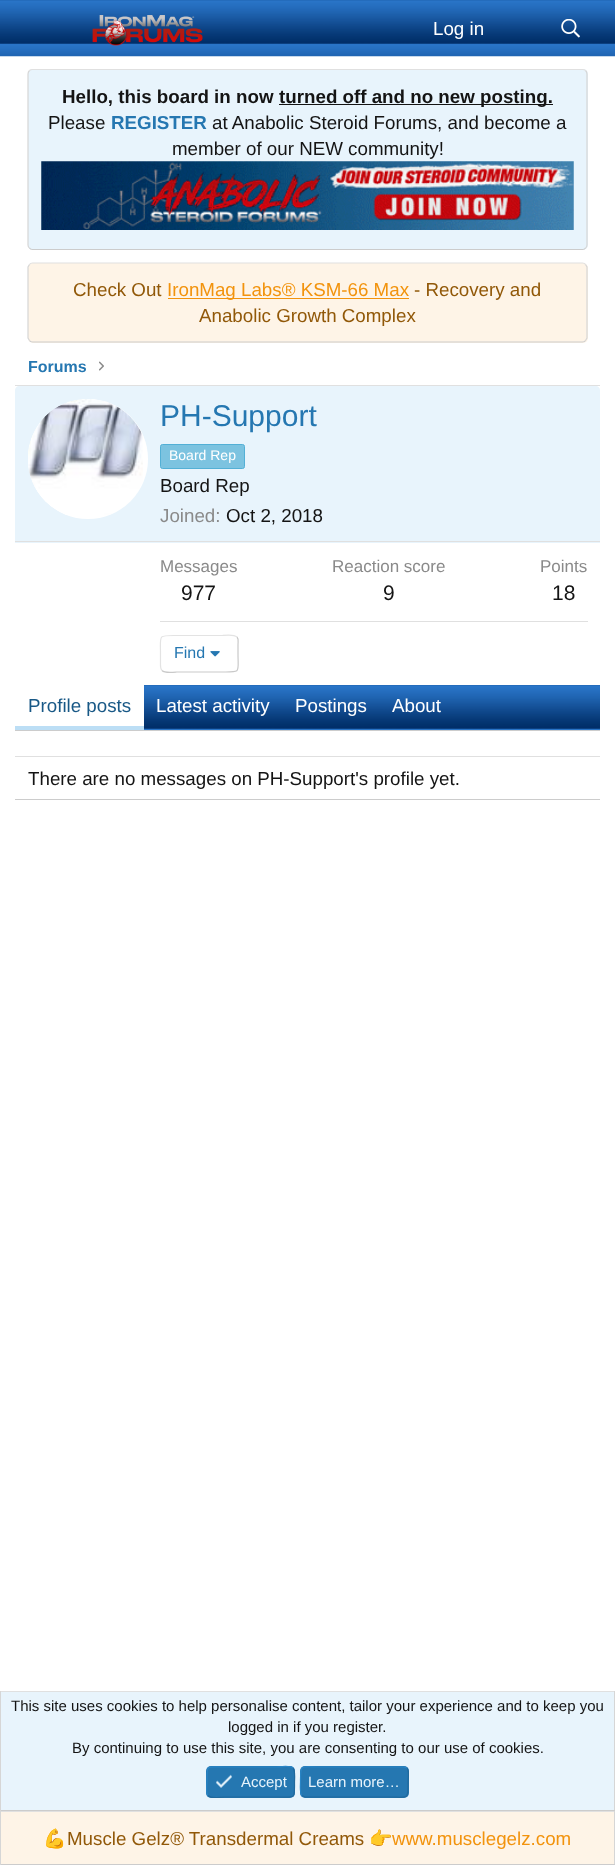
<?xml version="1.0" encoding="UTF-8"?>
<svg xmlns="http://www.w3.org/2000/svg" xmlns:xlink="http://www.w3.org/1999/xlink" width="615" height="1865">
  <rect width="100%" height="100%" fill="#ffffff" />
  <image x="0" y="0" width="615" height="57" xlink:href="image1.png" />
  <image x="92" y="15" width="111" height="31" xlink:href="image2.png" />
  <image x="561" y="19" width="19" height="19" xlink:href="image3.png" />
  <rect x="28" y="69" width="560" height="181" rx="5" fill="#e8f4fc" />
  <path d="M 29.5 70.5 c 0.5 -0.5 2 -1 3 -1 h 550 c 1 0 2.5 0.5 3 1" fill="none" stroke="#e0e0e0" stroke-width="1.2" />
  <path d="M 585.5 70.5 c 1 1 1.5 2 1.5 3.5 v 171 c 0 1 -0.5 2.5 -1.5 3" fill="none" stroke="#d6d6d6" stroke-width="1.2" />
  <path d="M 585.5 248 c -0.5 1 -2 1.5 -3 1.5 h -550 c -1 0 -2.5 -0.5 -3 -1.5" fill="none" stroke="#cccccc" stroke-width="1.2" />
  <path d="M 29.5 248 c -1 -0.5 -1.5 -2 -1.5 -3 v -171 c 0 -1.5 0.5 -2.5 1.5 -3.5" fill="none" stroke="#d6d6d6" stroke-width="1.2" />
  <rect x="279" y="104" width="274" height="1" fill="#141414" />
  <image x="41" y="161" width="533" height="69" xlink:href="image4.png" />
  <rect x="28" y="263" width="560" height="80" rx="5" fill="#fef4e7" />
  <path d="M 29.5 264.5 c 0.5 -1 2 -1.5 3 -1.5 h 550 c 1 0 2.5 0.5 3 1.5" fill="none" stroke="#e0e0e0" stroke-width="1.2" />
  <path d="M 585.5 264.5 l 1.5 2.5 v 71 l -1.5 2.5" fill="none" stroke="#d6d6d6" stroke-width="1.2" />
  <path d="M 585.5 340.5 c -0.5 1 -2 1.5 -3 1.5 h -550 c -1 0 -2.5 -0.5 -3 -1.5" fill="none" stroke="#cccccc" stroke-width="1.2" />
  <path d="M 29.5 340.5 l -1.5 -2.5 v -71 l 1.5 -2.5" fill="none" stroke="#d6d6d6" stroke-width="1.2" />
  <rect x="168" y="298" width="241" height="1" fill="#f2930d" />
  <image x="99" y="361" width="5" height="10" xlink:href="image5.png" />
  <rect x="15" y="385" width="585" height="1" fill="#e0e0e0" />
  <rect x="15" y="730" width="585" height="1" fill="#cccccc" />
  <path d="M 19 386 h 577 c 2 0 4 2 4 4 v 153 h -585 v -153 c 0 -2 2 -4 4 -4 z" fill="#e8f4fc" />
  <rect x="15" y="541" width="585" height="1" fill="#e0e0e0" />
  <circle cx="88" cy="459" r="60" fill="#ffffff" />
  <image x="28" y="399" width="115" height="116" xlink:href="image6.png" />
  <rect x="160.5" y="444.5" width="84" height="24" rx="2" fill="#7cc3e0" stroke="#53b0d6" />
  <rect x="160" y="621" width="428" height="1" fill="#e0e0e0" />
  <path d="M 237 637 c 2 2 1 5 1 7.5 v 9.5 c 0 19 3.5 18 -15.5 18 h -46 c -0.5 0 -11.5 1.5 -14.5 -1.5" fill="none" stroke="#c9c9c9" stroke-width="1.2" />
  <path d="M 162 670.5 c -2 -2 -1.5 -5 -1.5 -7.5 v -9 c 0 -19.5 -3 -18.5 16 -18.5 h 46 c 0.5 0 11 -1.5 14.5 1.5" fill="none" stroke="#e3e3e3" stroke-width="1.2" />
  <image x="210" y="651" width="10" height="6" xlink:href="image7.png" />
  <image x="144" y="685" width="456" height="45" xlink:href="image8.png" />
  <rect x="15" y="726" width="129" height="4" fill="#bcdef5" />
  <rect x="15" y="756" width="585" height="1" fill="#e0e0e0" />
  <rect x="15" y="799" width="585" height="1" fill="#cccccc" />
  <rect x="1" y="1692" width="613" height="118" fill="#e8f4fc" />
  <rect y="1691" width="615" height="1" fill="#e0e0e0" />
  <rect x="614" y="1691" width="1" height="120" fill="#d6d6d6" />
  <rect y="1810" width="615" height="1" fill="#cccccc" />
  <rect y="1691" width="1" height="120" fill="#d6d6d6" />
  <rect x="206" y="1766" width="89" height="32" rx="5" fill="#2577b1" />
  <path d="M 293 1768 c 2.5 3 1.5 10.5 1.5 14 c 0 17.5 1.5 15 -17.5 15 h -52.5 c -1.5 0 -13 2 -16.5 -1.5" fill="none" stroke="#21699c" stroke-width="1.2" />
  <path d="M 208 1795.5 c -2.5 -2.5 -1 -10.5 -1 -13.5 c 0 -18 -1.5 -15 17.5 -15 h 52.5 c 1 0 13 -2 16 1" fill="none" stroke="#2985c6" stroke-width="1.2" />
  <image x="216" y="1774" width="16" height="14" xlink:href="image9.png" />
  <rect x="300" y="1766" width="109" height="32" rx="5" fill="#2577b1" />
  <path d="M 407 1768 c 2.5 3 1 10.5 1 14 c 0 19 1 15 -20.5 15 h -82.5 l -3 -1.5" fill="none" stroke="#21699c" stroke-width="1.2" />
  <path d="M 302 1795.5 c -2.5 -2.5 -1.5 -10.5 -1.5 -13.5 c 0 -19 -0.5 -15 21 -15 h 82.5 l 3 1" fill="none" stroke="#2985c6" stroke-width="1.2" />
  <rect x="1" y="1812" width="613" height="52" fill="#fef4e7" />
  <rect y="1811" width="615" height="1" fill="#e0e0e0" />
  <rect x="614" y="1811" width="1" height="54" fill="#d6d6d6" />
  <rect y="1864" width="615" height="1" fill="#cccccc" />
  <rect y="1811" width="1" height="54" fill="#d6d6d6" />
  <text x="433" y="35" style="font-family: Liberation Sans; font-size: 18.75px; fill: #ffffff">Log in</text>
  <text x="62" y="103" style="font-family: Liberation Sans; font-size: 18.75px; font-weight: bold; fill: #141414">Hello, this board in now</text>
  <text x="279" y="103" style="font-family: Liberation Sans; font-size: 18.75px; font-weight: bold; fill: #141414">turned off and no new posting.</text>
  <text x="48" y="129" style="font-family: Liberation Sans; font-size: 18.75px; fill: #141414">Please</text>
  <text x="111" y="129" style="font-family: Liberation Sans; font-size: 18.75px; font-weight: bold; fill: #2577b1">REGISTER</text>
  <text x="212" y="129" style="font-family: Liberation Sans; font-size: 18.75px; fill: #141414">at Anabolic Steroid Forums, and become a</text>
  <text x="172" y="155" style="font-family: Liberation Sans; font-size: 18.75px; fill: #141414">member of our NEW community!</text>
  <text x="73" y="296" style="font-family: Liberation Sans; font-size: 18.75px; fill: #915808">Check Out</text>
  <text x="167" y="296" style="font-family: Liberation Sans; font-size: 18.75px; fill: #f2930d">IronMag Labs® KSM-66 Max</text>
  <text x="414" y="296" style="font-family: Liberation Sans; font-size: 18.75px; fill: #915808">- Recovery and</text>
  <text x="199" y="322" style="font-family: Liberation Sans; font-size: 18.75px; fill: #915808">Anabolic Growth Complex</text>
  <text x="28" y="372" style="font-family: Liberation Sans; font-size: 16px; font-weight: bold; fill: #2577b1">Forums</text>
  <text x="160" y="426" style="font-family: Liberation Sans; font-size: 30px; fill: #2577b1">PH-Support</text>
  <text x="169" y="460" style="font-family: Liberation Sans; font-size: 14px; fill: #ffffff">Board Rep</text>
  <text x="160" y="492" style="font-family: Liberation Sans; font-size: 18.75px; fill: #141414">Board Rep</text>
  <text x="160" y="522" style="font-family: Liberation Sans; font-size: 18.75px; fill: #8a8a8a">Joined:</text>
  <text x="226" y="522" style="font-family: Liberation Sans; font-size: 18.75px; fill: #141414">Oct 2, 2018</text>
  <text x="160" y="572" style="font-family: Liberation Sans; font-size: 17px; fill: #8a8a8a">Messages</text>
  <text x="181" y="600" style="font-family: Liberation Sans; font-size: 21px; fill: #141414">977</text>
  <text x="332" y="572" style="font-family: Liberation Sans; font-size: 17px; fill: #8a8a8a">Reaction score</text>
  <text x="383" y="600" style="font-family: Liberation Sans; font-size: 21px; fill: #141414">9</text>
  <text x="540" y="572" style="font-family: Liberation Sans; font-size: 17px; fill: #8a8a8a">Points</text>
  <text x="552" y="600" style="font-family: Liberation Sans; font-size: 21px; fill: #141414">18</text>
  <text x="174" y="658" style="font-family: Liberation Sans; font-size: 16px; fill: #2577b1">Find</text>
  <text x="28" y="712" style="font-family: Liberation Sans; font-size: 18.75px; fill: #185886">Profile posts</text>
  <text x="156" y="712" style="font-family: Liberation Sans; font-size: 18.75px; fill: #ffffff">Latest activity</text>
  <text x="295" y="712" style="font-family: Liberation Sans; font-size: 18.75px; fill: #ffffff">Postings</text>
  <text x="392" y="712" style="font-family: Liberation Sans; font-size: 18.75px; fill: #ffffff">About</text>
  <text x="28" y="785" style="font-family: Liberation Sans; font-size: 18.75px; fill: #141414">There are no messages on PH-Support's profile yet.</text>
  <text x="11" y="1711" style="font-family: Liberation Sans; font-size: 15px; fill: #141414">This site uses cookies to help personalise content, tailor your experience and to keep you</text>
  <text x="228" y="1732" style="font-family: Liberation Sans; font-size: 15px; fill: #141414">logged in if you register.</text>
  <text x="72" y="1753" style="font-family: Liberation Sans; font-size: 15px; fill: #141414">By continuing to use this site, you are consenting to our use of cookies.</text>
  <text x="241" y="1787" style="font-family: Liberation Sans; font-size: 15px; fill: #e8f4fc">Accept</text>
  <text x="308" y="1787" style="font-family: Liberation Sans; font-size: 15px; fill: #e8f4fc">Learn more…</text>
  <text x="43" y="1845" style="font-family: Noto Color Emoji; font-size: 18.75px; fill: #915808">💪</text>
  <text x="67" y="1845" style="font-family: Liberation Sans; font-size: 18.75px; fill: #915808">Muscle Gelz® Transdermal Creams</text>
  <text x="369" y="1845" style="font-family: Noto Color Emoji; font-size: 18.75px; fill: #915808">👉</text>
  <text x="392" y="1845" style="font-family: Liberation Sans; font-size: 18.75px; fill: #f2930d">www.musclegelz.com</text>
</svg>
